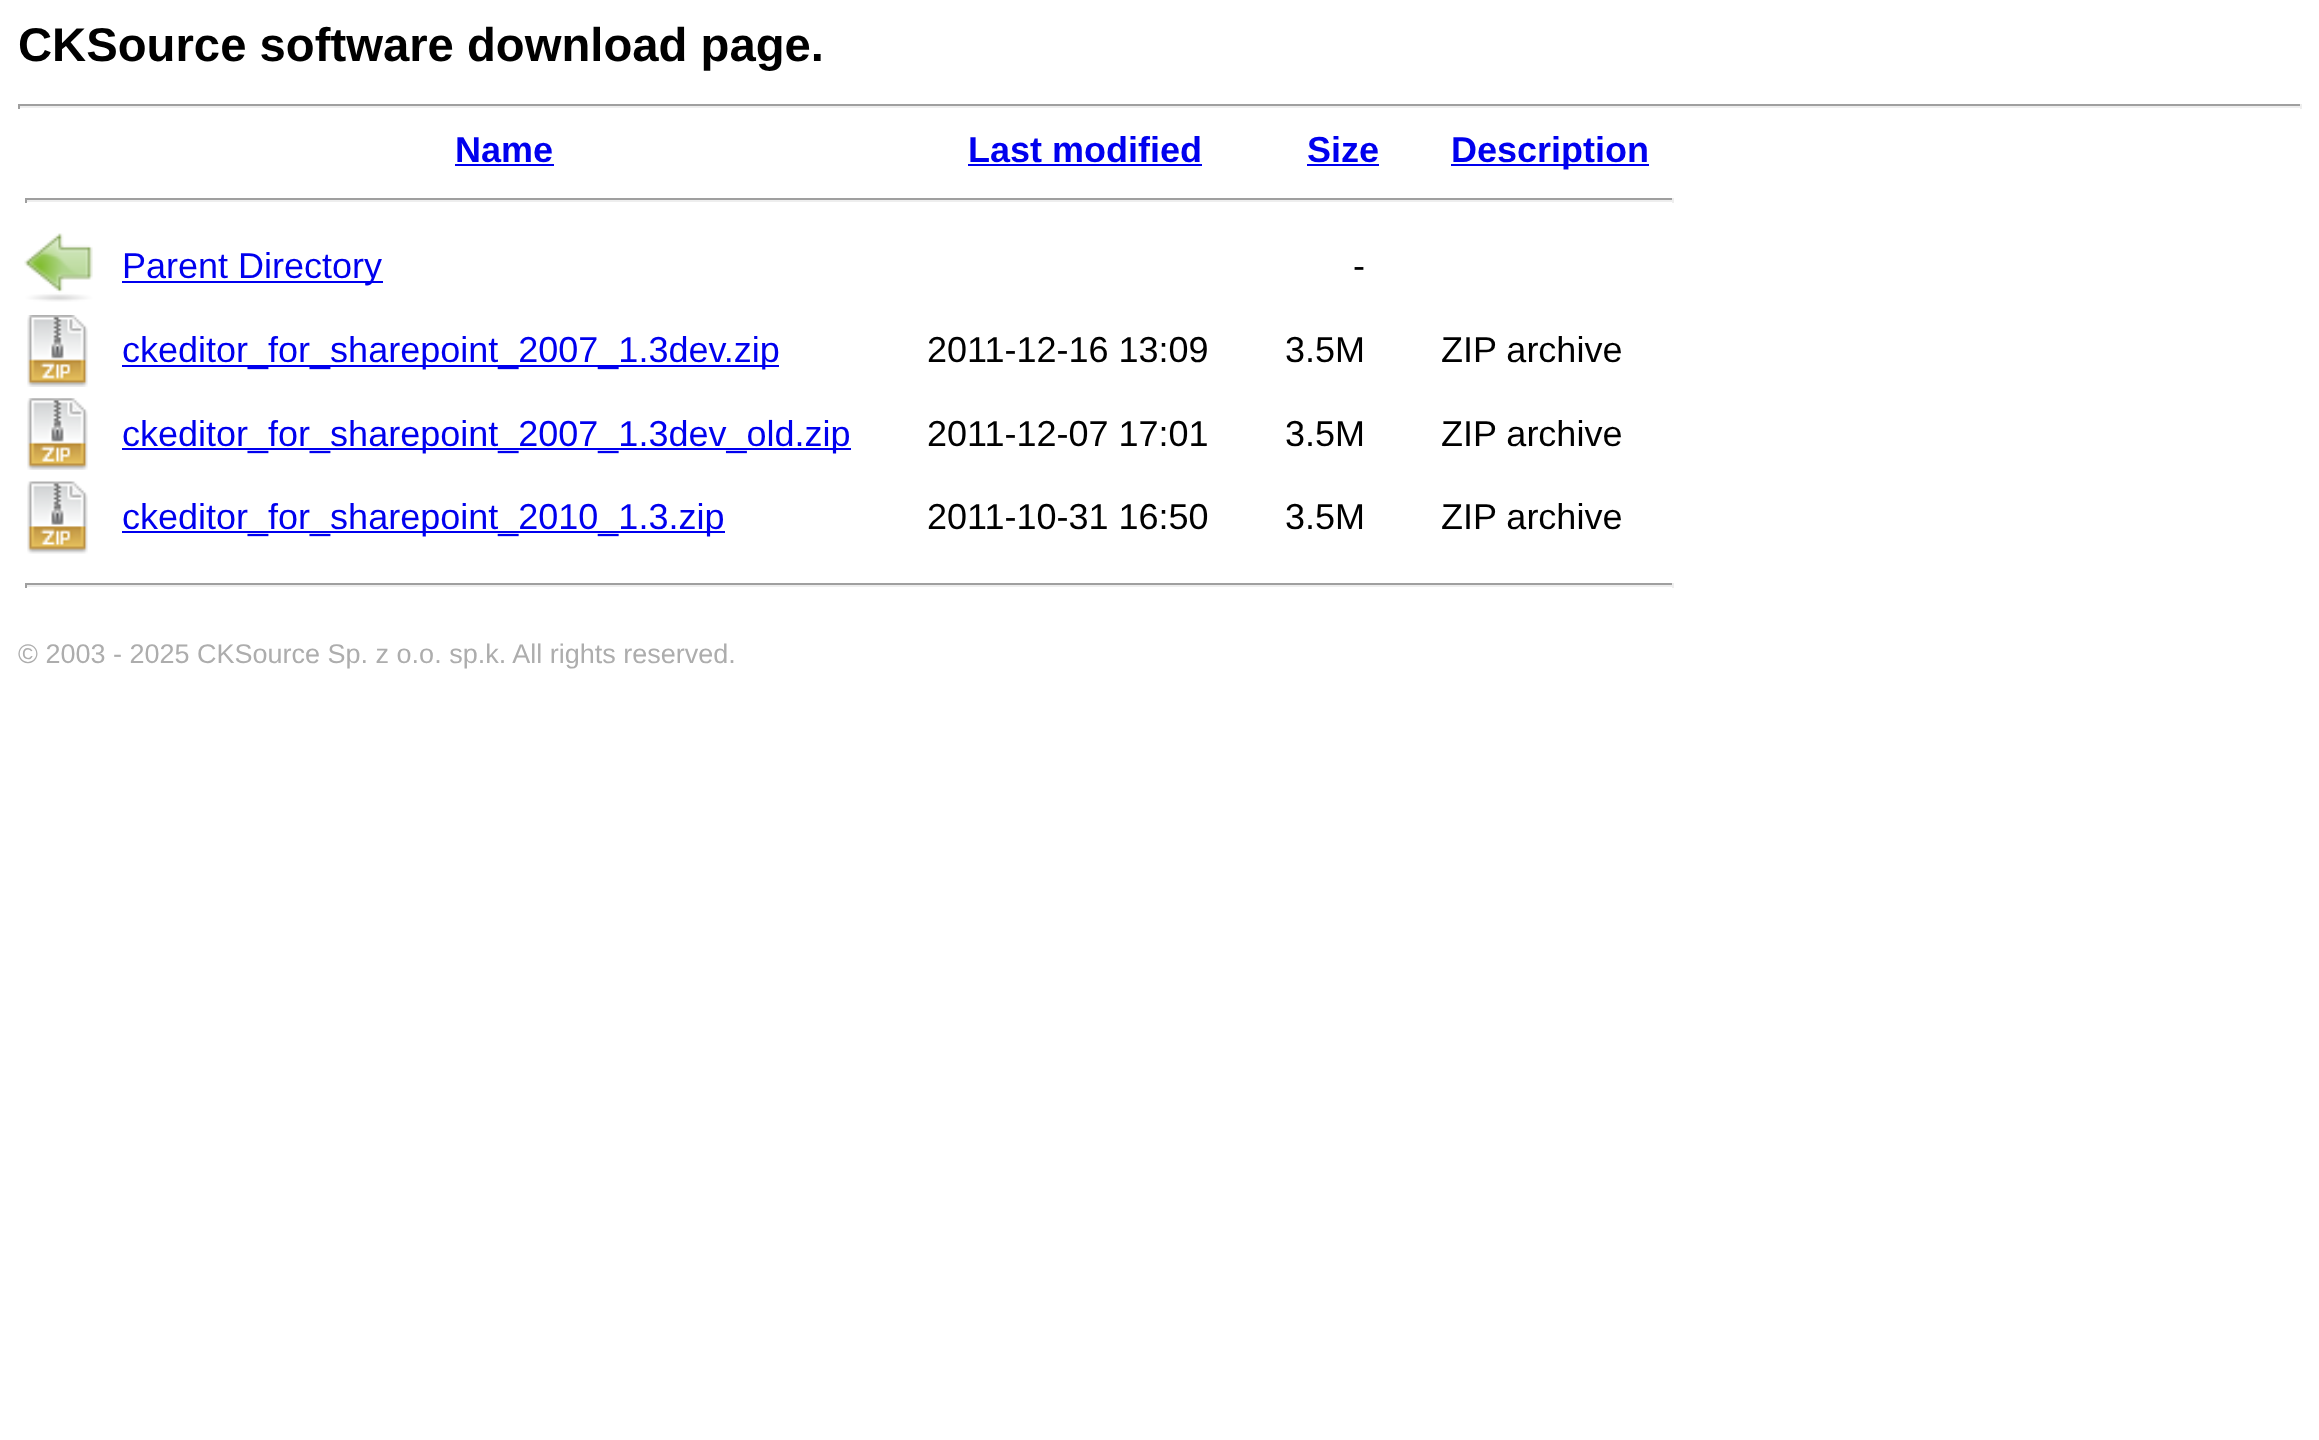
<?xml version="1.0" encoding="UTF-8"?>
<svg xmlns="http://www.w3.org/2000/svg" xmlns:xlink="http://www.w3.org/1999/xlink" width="2319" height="1440">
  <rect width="100%" height="100%" fill="#ffffff" />
  <rect x="18" y="104" width="2284" height="2" fill="#9f9f9f" />
  <rect x="2300" y="104" width="2" height="5" fill="#eeeeee" />
  <rect x="18" y="106" width="2284" height="2" fill="#eeeeee" />
  <rect x="18" y="104" width="2" height="5" fill="#9f9f9f" />
  <rect x="455" y="164" width="99" height="2" fill="#0000ee" />
  <rect x="968" y="164" width="234" height="2" fill="#0000ee" />
  <rect x="1307" y="164" width="72" height="2" fill="#0000ee" />
  <rect x="1451" y="164" width="198" height="2" fill="#0000ee" />
  <rect x="25" y="198" width="1649" height="2" fill="#9f9f9f" />
  <rect x="1672" y="198" width="2" height="5" fill="#eeeeee" />
  <rect x="25" y="200" width="1649" height="2" fill="#eeeeee" />
  <rect x="25" y="198" width="2" height="5" fill="#9f9f9f" />
  <image x="24" y="233" width="69" height="69" xlink:href="image1.png" />
  <rect x="122" y="281" width="261" height="2" fill="#0000ee" />
  <image x="27" y="315" width="61" height="72" xlink:href="image2.png" />
  <rect x="122" y="365" width="657" height="2" fill="#0000ee" />
  <image x="27" y="398" width="61" height="72" xlink:href="image3.png" />
  <rect x="122" y="448" width="729" height="2" fill="#0000ee" />
  <image x="27" y="481" width="61" height="73" xlink:href="image4.png" />
  <rect x="122" y="531" width="603" height="2" fill="#0000ee" />
  <rect x="25" y="583" width="1649" height="2" fill="#9f9f9f" />
  <rect x="1672" y="583" width="2" height="5" fill="#eeeeee" />
  <rect x="25" y="585" width="1649" height="2" fill="#eeeeee" />
  <rect x="25" y="583" width="2" height="5" fill="#9f9f9f" />
  <text x="18" y="61" style="font-family: Liberation Sans; font-size: 47.25px; font-weight: bold; fill: #000000">CKSource software download page.</text>
  <text x="455" y="162" style="font-family: Liberation Sans; font-size: 36px; font-weight: bold; fill: #0000ee">Name</text>
  <text x="968" y="162" style="font-family: Liberation Sans; font-size: 36px; font-weight: bold; fill: #0000ee">Last modified</text>
  <text x="1307" y="162" style="font-family: Liberation Sans; font-size: 36px; font-weight: bold; fill: #0000ee">Size</text>
  <text x="1451" y="162" style="font-family: Liberation Sans; font-size: 36px; font-weight: bold; fill: #0000ee">Description</text>
  <text x="122" y="278" style="font-family: Liberation Sans; font-size: 36px; fill: #0000ee">Parent Directory</text>
  <text x="1353" y="278" style="font-family: Liberation Sans; font-size: 36px; fill: #000000">-</text>
  <text x="122" y="362" style="font-family: Liberation Sans; font-size: 36px; fill: #0000ee">ckeditor_for_sharepoint_2007_1.3dev.zip</text>
  <text x="927" y="362" style="font-family: Liberation Sans; font-size: 36px; fill: #000000">2011-12-16 13:09</text>
  <text x="1285" y="362" style="font-family: Liberation Sans; font-size: 36px; fill: #000000">3.5M</text>
  <text x="1441" y="362" style="font-family: Liberation Sans; font-size: 36px; fill: #000000">ZIP archive</text>
  <text x="122" y="446" style="font-family: Liberation Sans; font-size: 36px; fill: #0000ee">ckeditor_for_sharepoint_2007_1.3dev_old.zip</text>
  <text x="927" y="446" style="font-family: Liberation Sans; font-size: 36px; fill: #000000">2011-12-07 17:01</text>
  <text x="1285" y="446" style="font-family: Liberation Sans; font-size: 36px; fill: #000000">3.5M</text>
  <text x="1441" y="446" style="font-family: Liberation Sans; font-size: 36px; fill: #000000">ZIP archive</text>
  <text x="122" y="529" style="font-family: Liberation Sans; font-size: 36px; fill: #0000ee">ckeditor_for_sharepoint_2010_1.3.zip</text>
  <text x="927" y="529" style="font-family: Liberation Sans; font-size: 36px; fill: #000000">2011-10-31 16:50</text>
  <text x="1285" y="529" style="font-family: Liberation Sans; font-size: 36px; fill: #000000">3.5M</text>
  <text x="1441" y="529" style="font-family: Liberation Sans; font-size: 36px; fill: #000000">ZIP archive</text>
  <text x="18" y="663" style="font-family: Liberation Sans; font-size: 27px; fill: #adadad">© 2003 - 2025 CKSource Sp. z o.o. sp.k. All rights reserved.</text>
</svg>
